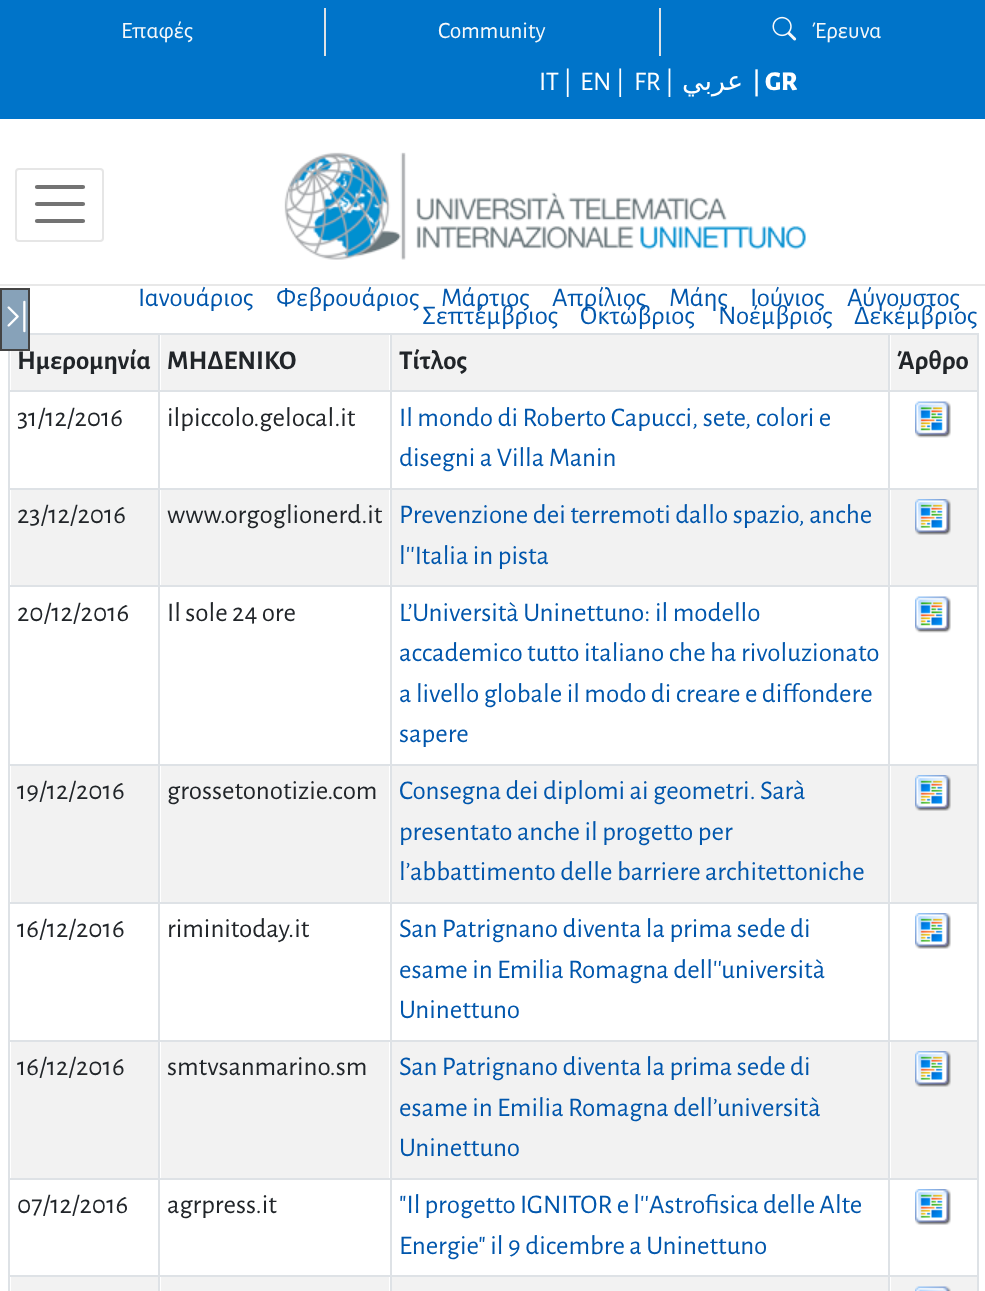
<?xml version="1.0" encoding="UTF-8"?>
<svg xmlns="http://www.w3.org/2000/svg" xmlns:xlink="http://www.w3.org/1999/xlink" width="985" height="1291">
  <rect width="100%" height="100%" fill="#ffffff" />
  <rect y="284" width="985" height="2" fill="#e8e8e8" />
  <rect width="985" height="119" fill="#0074c9" />
  <rect x="324" y="8" width="2" height="48" fill="#dee2e6" />
  <rect x="659" y="8" width="2" height="48" fill="#dee2e6" />
  <image x="772" y="16" width="25" height="25" xlink:href="image1.png" />
  <rect x="16" y="169" width="87" height="72" rx="3" fill="none" stroke="#e6e6e6" stroke-width="2" />
  <path d="M 37 187 h 46 m -46 17 h 46 m -46 17 h 46" fill="none" stroke="#737373" stroke-width="4.2" stroke-linecap="round" />
  <image x="284" y="152" width="522" height="108" xlink:href="image2.png" />
  <rect x="30" y="333" width="948" height="2" fill="#dee2e6" />
  <rect x="977" y="333" width="2" height="958" fill="#dee2e6" />
  <rect x="8" y="351" width="2" height="940" fill="#dee2e6" />
  <rect x="8" y="1275" width="970" height="2" fill="#dee2e6" />
  <rect x="11" y="1277" width="147" height="14" fill="#f2f2f2" />
  <rect x="161" y="1277" width="228" height="14" fill="#f2f2f2" />
  <rect x="8" y="390" width="970" height="2" fill="#dee2e6" />
  <rect x="8" y="488" width="970" height="2" fill="#dee2e6" />
  <rect x="8" y="585" width="970" height="2" fill="#dee2e6" />
  <rect x="8" y="764" width="970" height="2" fill="#dee2e6" />
  <rect x="8" y="902" width="970" height="2" fill="#dee2e6" />
  <rect x="8" y="1040" width="970" height="2" fill="#dee2e6" />
  <rect x="8" y="1178" width="970" height="2" fill="#dee2e6" />
  <rect x="158" y="333" width="2" height="958" fill="#dee2e6" />
  <rect x="392" y="1277" width="496" height="14" fill="#f2f2f2" />
  <rect x="390" y="333" width="2" height="958" fill="#dee2e6" />
  <rect x="891" y="1277" width="86" height="14" fill="#f2f2f2" />
  <rect x="888" y="333" width="2" height="958" fill="#dee2e6" />
  <image x="915" y="1286" width="36" height="5" xlink:href="image4.png" />
  <rect x="11" y="335" width="147" height="55" fill="#f2f2f2" />
  <rect x="161" y="335" width="228" height="55" fill="#f2f2f2" />
  <rect x="392" y="335" width="496" height="55" fill="#f2f2f2" />
  <rect x="891" y="335" width="86" height="55" fill="#f2f2f2" />
  <image x="915" y="401" width="36" height="37" xlink:href="image5.png" />
  <rect x="11" y="490" width="147" height="95" fill="#f2f2f2" />
  <rect x="161" y="490" width="228" height="95" fill="#f2f2f2" />
  <rect x="392" y="490" width="496" height="95" fill="#f2f2f2" />
  <rect x="891" y="490" width="86" height="95" fill="#f2f2f2" />
  <image x="915" y="499" width="36" height="36" xlink:href="image6.png" />
  <image x="915" y="596" width="36" height="37" xlink:href="image5.png" />
  <rect x="11" y="766" width="147" height="136" fill="#f2f2f2" />
  <rect x="161" y="766" width="228" height="136" fill="#f2f2f2" />
  <rect x="392" y="766" width="496" height="136" fill="#f2f2f2" />
  <rect x="891" y="766" width="86" height="136" fill="#f2f2f2" />
  <image x="915" y="775" width="36" height="36" xlink:href="image6.png" />
  <image x="915" y="913" width="36" height="36" xlink:href="image7.png" />
  <rect x="11" y="1042" width="147" height="136" fill="#f2f2f2" />
  <rect x="161" y="1042" width="228" height="136" fill="#f2f2f2" />
  <rect x="392" y="1042" width="496" height="136" fill="#f2f2f2" />
  <rect x="891" y="1042" width="86" height="136" fill="#f2f2f2" />
  <image x="915" y="1051" width="36" height="36" xlink:href="image6.png" />
  <image x="915" y="1189" width="36" height="36" xlink:href="image7.png" />
  <text x="121" y="38" style="font-family: Alegreya Sans; font-size: 23.5px; fill: #f8f9fa">Επαφές</text>
  <text x="438" y="38" style="font-family: Alegreya Sans; font-size: 23.5px; fill: #f8f9fa">Community</text>
  <text x="812" y="38" style="font-family: Alegreya Sans; font-size: 23.5px; fill: #f8f9fa">Έρευνα</text>
  <text x="539" y="90" style="font-family: Alegreya Sans; font-size: 27px; fill: #ffffff">IT |</text>
  <text x="580" y="90" style="font-family: Alegreya Sans; font-size: 27px; fill: #ffffff">EN |</text>
  <text x="634" y="90" style="font-family: Alegreya Sans; font-size: 27px; fill: #ffffff">FR |</text>
  <text x="743" y="90" style="font-family: DejaVu Sans; font-size: 27px; direction: rtl; fill: #ffffff">عربي</text>
  <text x="752" y="90" style="font-family: DejaVu Sans; font-size: 27px; fill: #ffffff">|</text>
  <text x="765" y="90" style="font-family: Alegreya Sans; font-size: 27px; font-weight: 800; fill: #ffffff">GR</text>
  <text x="138" y="306" style="font-family: Alegreya Sans; font-size: 27px; fill: #0056ac">Ιανουάριος</text>
  <text x="276" y="306" style="font-family: Alegreya Sans; font-size: 27px; fill: #0056ac">Φεβρουάριος</text>
  <text x="441" y="306" style="font-family: Alegreya Sans; font-size: 27px; fill: #0056ac">Μάρτιος</text>
  <text x="552" y="306" style="font-family: Alegreya Sans; font-size: 27px; fill: #0056ac">Απρίλιος</text>
  <text x="669" y="306" style="font-family: Alegreya Sans; font-size: 27px; fill: #0056ac">Μάης</text>
  <text x="750" y="306" style="font-family: Alegreya Sans; font-size: 27px; fill: #0056ac">Ιούνιος</text>
  <text x="847" y="306" style="font-family: Alegreya Sans; font-size: 27px; fill: #0056ac">Αύγουστος</text>
  <text x="422" y="324" style="font-family: Alegreya Sans; font-size: 27px; fill: #0056ac">Σεπτέμβριος</text>
  <text x="580" y="324" style="font-family: Alegreya Sans; font-size: 27px; fill: #0056ac">Οκτώβριος</text>
  <text x="718" y="324" style="font-family: Alegreya Sans; font-size: 27px; fill: #0056ac">Νοέμβριος</text>
  <text x="854" y="324" style="font-family: Alegreya Sans; font-size: 27px; fill: #0056ac">Δεκέμβριος</text>
  <text x="17" y="369" style="font-family: Alegreya Sans; font-size: 27px; font-weight: bold; fill: #212529">Ημερομηνία</text>
  <rect x="1" y="289" width="28" height="61" fill="#87a2b9" stroke="#444444" stroke-width="2" />
  <image x="7" y="300" width="19" height="33" xlink:href="image3.png" />
  <text x="167" y="369" style="font-family: Alegreya Sans; font-size: 27px; font-weight: bold; fill: #212529">ΜΗΔΕΝΙΚΟ</text>
  <text x="399" y="369" style="font-family: Alegreya Sans; font-size: 27px; font-weight: bold; fill: #212529">Τίτλος</text>
  <text x="897" y="369" style="font-family: Alegreya Sans; font-size: 27px; font-weight: bold; fill: #212529">Άρθρο</text>
  <text x="17" y="426" style="font-family: Alegreya Sans; font-size: 27px; fill: #212529">31/12/2016</text>
  <text x="167" y="426" style="font-family: Alegreya Sans; font-size: 27px; fill: #212529">ilpiccolo.gelocal.it</text>
  <text x="399" y="426" style="font-family: Alegreya Sans; font-size: 27px; fill: #0056ac">Il mondo di Roberto Capucci, sete, colori e</text>
  <text x="399" y="466" style="font-family: Alegreya Sans; font-size: 27px; fill: #0056ac">disegni a Villa Manin</text>
  <text x="17" y="523" style="font-family: Alegreya Sans; font-size: 27px; fill: #212529">23/12/2016</text>
  <text x="167" y="523" style="font-family: Alegreya Sans; font-size: 27px; fill: #212529">www.orgoglionerd.it</text>
  <text x="399" y="523" style="font-family: Alegreya Sans; font-size: 27px; fill: #0056ac">Prevenzione dei terremoti dallo spazio, anche</text>
  <text x="399" y="564" style="font-family: Alegreya Sans; font-size: 27px; fill: #0056ac">l''Italia in pista</text>
  <text x="17" y="621" style="font-family: Alegreya Sans; font-size: 27px; fill: #212529">20/12/2016</text>
  <text x="167" y="621" style="font-family: Alegreya Sans; font-size: 27px; fill: #212529">Il sole 24 ore</text>
  <text x="399" y="621" style="font-family: Alegreya Sans; font-size: 27px; fill: #0056ac">L’Università Uninettuno: il modello</text>
  <text x="399" y="661" style="font-family: Alegreya Sans; font-size: 27px; fill: #0056ac">accademico tutto italiano che ha rivoluzionato</text>
  <text x="399" y="702" style="font-family: Alegreya Sans; font-size: 27px; fill: #0056ac">a livello globale il modo di creare e diffondere</text>
  <text x="399" y="742" style="font-family: Alegreya Sans; font-size: 27px; fill: #0056ac">sapere</text>
  <text x="17" y="799" style="font-family: Alegreya Sans; font-size: 27px; fill: #212529">19/12/2016</text>
  <text x="167" y="799" style="font-family: Alegreya Sans; font-size: 27px; fill: #212529">grossetonotizie.com</text>
  <text x="399" y="799" style="font-family: Alegreya Sans; font-size: 27px; fill: #0056ac">Consegna dei diplomi ai geometri. Sarà</text>
  <text x="399" y="840" style="font-family: Alegreya Sans; font-size: 27px; fill: #0056ac">presentato anche il progetto per</text>
  <text x="399" y="880" style="font-family: Alegreya Sans; font-size: 27px; fill: #0056ac">l’abbattimento delle barriere architettoniche</text>
  <text x="17" y="937" style="font-family: Alegreya Sans; font-size: 27px; fill: #212529">16/12/2016</text>
  <text x="167" y="937" style="font-family: Alegreya Sans; font-size: 27px; fill: #212529">riminitoday.it</text>
  <text x="399" y="937" style="font-family: Alegreya Sans; font-size: 27px; fill: #0056ac">San Patrignano diventa la prima sede di</text>
  <text x="399" y="978" style="font-family: Alegreya Sans; font-size: 27px; fill: #0056ac">esame in Emilia Romagna dell''università</text>
  <text x="399" y="1018" style="font-family: Alegreya Sans; font-size: 27px; fill: #0056ac">Uninettuno</text>
  <text x="17" y="1075" style="font-family: Alegreya Sans; font-size: 27px; fill: #212529">16/12/2016</text>
  <text x="167" y="1075" style="font-family: Alegreya Sans; font-size: 27px; fill: #212529">smtvsanmarino.sm</text>
  <text x="399" y="1075" style="font-family: Alegreya Sans; font-size: 27px; fill: #0056ac">San Patrignano diventa la prima sede di</text>
  <text x="399" y="1116" style="font-family: Alegreya Sans; font-size: 27px; fill: #0056ac">esame in Emilia Romagna dell’università</text>
  <text x="399" y="1156" style="font-family: Alegreya Sans; font-size: 27px; fill: #0056ac">Uninettuno</text>
  <text x="17" y="1213" style="font-family: Alegreya Sans; font-size: 27px; fill: #212529">07/12/2016</text>
  <text x="167" y="1213" style="font-family: Alegreya Sans; font-size: 27px; fill: #212529">agrpress.it</text>
  <text x="399" y="1213" word-spacing="-0.25" style="font-family: Alegreya Sans; font-size: 27px; fill: #0056ac">"Il progetto IGNITOR e l''Astrofisica delle Alte</text>
  <text x="399" y="1254" style="font-family: Alegreya Sans; font-size: 27px; fill: #0056ac">Energie" il 9 dicembre a Uninettuno</text>
</svg>
